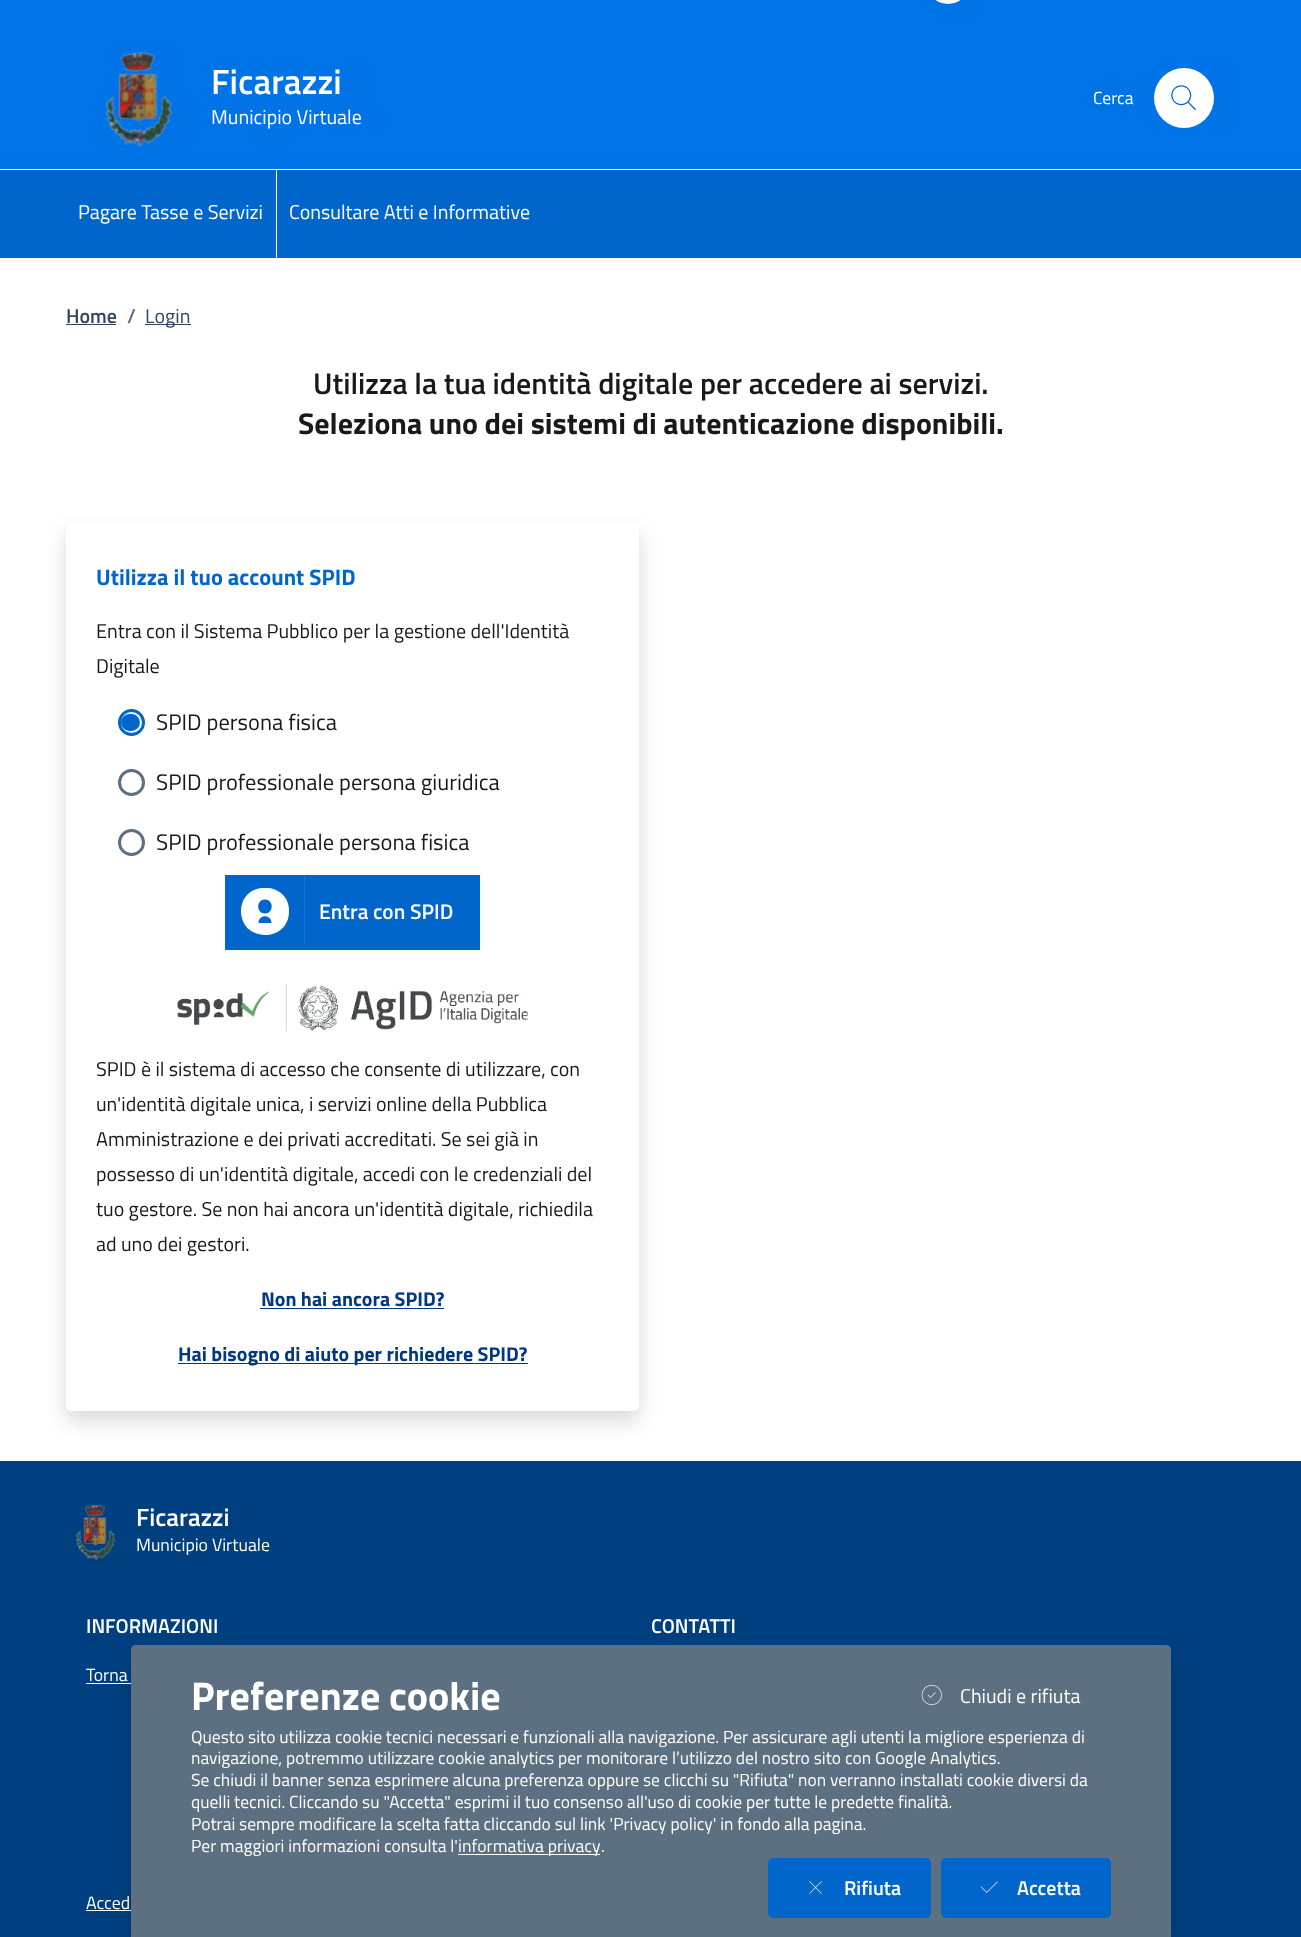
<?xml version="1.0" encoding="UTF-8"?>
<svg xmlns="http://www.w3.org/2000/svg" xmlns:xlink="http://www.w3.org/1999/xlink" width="1301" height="1937">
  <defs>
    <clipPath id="clip1"><rect x="241" y="888" width="48" height="47" /></clipPath>
  </defs>
  <rect width="100%" height="100%" fill="#ffffff" />
  <rect width="1301" height="169" fill="#0073e6" />
  <rect x="933" y="-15" width="30" height="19" rx="15" fill="#ffffff" />
  <image x="105" y="52" width="68" height="95" xlink:href="image1.png" />
  <circle cx="1184" cy="98" r="30" fill="#ffffff" />
  <image x="1171" y="85" width="25" height="26" xlink:href="image2.png" />
  <rect y="170" width="1301" height="88" fill="#0066cc" />
  <rect x="276" y="170" width="1" height="88" fill="#ffffff" />
  <rect x="66" y="324" width="50" height="1" fill="#30475f" />
  <rect x="145" y="324" width="46" height="1" fill="#30475f" />
  <rect x="66" y="533" width="573" height="888" rx="5" fill="#000000" fill-opacity="0.15" filter="blur(10px)" />
  <rect x="66" y="523" width="573" height="888" rx="5" fill="#ffffff" />
  <circle cx="131.5" cy="722.5" r="12" fill="none" stroke="#0066cc" stroke-width="3" />
  <rect x="122" y="715" width="17" height="15" rx="7.5" fill="#0066cc" stroke="#0066cc" stroke-width="2" />
  <circle cx="131.5" cy="782.5" r="12" fill="none" stroke="#5d7083" stroke-width="3" />
  <circle cx="131.5" cy="842.5" r="12" fill="none" stroke="#5d7083" stroke-width="3" />
  <rect x="225" y="875" width="255" height="75" fill="#0066cc" />
  <rect x="304" y="875" width="1" height="70" fill="#1a75d1" />
  <g clip-path="url(#clip1)">
    <path d="M 289 911 c 0 32 -48 32 -48 0 c 0 -31 48 -31 48 0" fill="#ffffff" />
  </g>
  <path d="M 265 913.5 c -9 0 -9 -14 0 -14 c 9 0 9 14 0 14 m -6.5 9.5 c 0 -9 13 -9 13 0" fill="#0066cc" />
  <image x="177" y="984" width="351" height="48" xlink:href="image3.png" />
  <rect x="260" y="1308" width="184" height="1" fill="#003882" />
  <rect x="178" y="1363" width="350" height="1" fill="#003882" />
  <rect y="1461" width="1301" height="476" fill="#004080" />
  <image x="76" y="1505" width="40" height="55" xlink:href="image4.png" />
  <rect x="86" y="1683" width="45" height="1" fill="#ffffff" />
  <rect x="86" y="1910" width="45" height="1" fill="#ffffff" />
  <rect x="131" y="1655" width="1040" height="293" rx="5" fill="#000000" fill-opacity="0.15" filter="blur(10px)" />
  <path d="M 136 1645 h 1030 c 3 0 5 2 5 5 v 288 h -1040 v -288 c 0 -3 2 -5 5 -5 z" fill="#5c7082" />
  <image x="921" y="1685" width="21" height="20" xlink:href="image5.png" />
  <rect x="458" y="1854" width="142" height="1" fill="#ffffff" />
  <rect x="768" y="1858" width="163" height="60" rx="5" fill="#0066cc" />
  <image x="809" y="1881" width="13" height="13" xlink:href="image6.png" />
  <rect x="941" y="1858" width="170" height="60" rx="5" fill="#0066cc" />
  <image x="980" y="1881" width="18" height="12" xlink:href="image7.png" />
  <text x="211" y="94" style="font-family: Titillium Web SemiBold; font-size: 35px; font-weight: 600; fill: #ffffff">Ficarazzi</text>
  <text x="211" y="124" style="font-family: Titillium Web; font-size: 20px; fill: #ffffff">Municipio Virtuale</text>
  <text x="1093" y="104" style="font-family: Titillium Web; font-size: 17.5px; fill: #ffffff">Cerca</text>
  <text x="78" y="219" style="font-family: Titillium Web; font-size: 20px; fill: #ffffff">Pagare Tasse e Servizi</text>
  <text x="289" y="219" style="font-family: Titillium Web; font-size: 20px; fill: #ffffff">Consultare Atti e Informative</text>
  <text x="66" y="323" style="font-family: Titillium Web SemiBold; font-size: 20px; font-weight: 600; fill: #30475f">Home</text>
  <text x="127" y="323" style="font-family: Titillium Web SemiBold; font-size: 20px; font-weight: 600; fill: #5d7083">/</text>
  <text x="145" y="323" style="font-family: Titillium Web; font-size: 20px; fill: #30475f">Login</text>
  <text x="313" y="394" style="font-family: Titillium Web SemiBold; font-size: 30px; font-weight: 600; fill: #191919">Utilizza la tua identità digitale per accedere ai servizi.</text>
  <text x="298" y="434" style="font-family: Titillium Web; font-size: 30px; font-weight: bold; fill: #191919">Seleziona uno dei sistemi di autenticazione disponibili.</text>
  <text x="96" y="585" style="font-family: Titillium Web; font-size: 22.5px; font-weight: bold; fill: #0066cc">Utilizza il tuo account SPID</text>
  <text x="96" y="638" style="font-family: Titillium Web; font-size: 20px; fill: #191919">Entra con il Sistema Pubblico per la gestione dell'Identità</text>
  <text x="96" y="673" style="font-family: Titillium Web; font-size: 20px; fill: #191919">Digitale</text>
  <text x="156" y="730" style="font-family: Titillium Web; font-size: 22.5px; fill: #191919">SPID persona fisica</text>
  <text x="156" y="790" style="font-family: Titillium Web; font-size: 22.5px; fill: #191919">SPID professionale persona giuridica</text>
  <text x="156" y="850" style="font-family: Titillium Web; font-size: 22.5px; fill: #191919">SPID professionale persona fisica</text>
  <text x="319" y="919" style="font-family: Titillium Web SemiBold; font-size: 21.25px; font-weight: 600; fill: #ffffff">Entra con SPID</text>
  <text x="96" y="1076" style="font-family: Titillium Web; font-size: 20px; fill: #191919">SPID è il sistema di accesso che consente di utilizzare, con</text>
  <text x="96" y="1111" style="font-family: Titillium Web; font-size: 20px; fill: #191919">un'identità digitale unica, i servizi online della Pubblica</text>
  <text x="96" y="1146" style="font-family: Titillium Web; font-size: 20px; fill: #191919">Amministrazione e dei privati accreditati. Se sei già in</text>
  <text x="96" y="1181" style="font-family: Titillium Web; font-size: 20px; fill: #191919">possesso di un'identità digitale, accedi con le credenziali del</text>
  <text x="96" y="1216" style="font-family: Titillium Web; font-size: 20px; fill: #191919">tuo gestore. Se non hai ancora un'identità digitale, richiedila</text>
  <text x="96" y="1251" style="font-family: Titillium Web; font-size: 20px; fill: #191919">ad uno dei gestori.</text>
  <text x="261" y="1306" style="font-family: Titillium Web; font-size: 20px; font-weight: bold; fill: #003882">Non hai ancora SPID?</text>
  <text x="178" y="1361" style="font-family: Titillium Web; font-size: 20px; font-weight: bold; fill: #003882">Hai bisogno di aiuto per richiedere SPID?</text>
  <text x="136" y="1526" style="font-family: Titillium Web SemiBold; font-size: 25px; font-weight: 600; fill: #ffffff">Ficarazzi</text>
  <text x="136" y="1551" style="font-family: Titillium Web; font-size: 17.75px; fill: #ffffff">Municipio Virtuale</text>
  <text x="86" y="1633" style="font-family: Titillium Web SemiBold; font-size: 20px; font-weight: 600; fill: #ffffff">INFORMAZIONI</text>
  <text x="86" y="1681" style="font-family: Titillium Web; font-size: 17.75px; fill: #ffffff">Torna</text>
  <text x="651" y="1633" style="font-family: Titillium Web SemiBold; font-size: 20px; font-weight: 600; fill: #ffffff">CONTATTI</text>
  <text x="191" y="1710" style="font-family: Titillium Web; font-size: 40px; font-weight: bold; fill: #ffffff">Preferenze cookie</text>
  <text x="960" y="1703" style="font-family: Titillium Web; font-size: 20px; fill: #ffffff">Chiudi e rifiuta</text>
  <text x="191" y="1743" style="font-family: Titillium Web; font-size: 17.5px; fill: #ffffff">Questo sito utilizza cookie tecnici necessari e funzionali alla navigazione. Per assicurare agli utenti la migliore esperienza di</text>
  <text x="191" y="1764" style="font-family: Titillium Web; font-size: 17.5px; fill: #ffffff">navigazione, potremmo utilizzare cookie analytics per monitorare l’utilizzo del nostro sito con Google Analytics.</text>
  <text x="191" y="1786" style="font-family: Titillium Web; font-size: 17.5px; fill: #ffffff">Se chiudi il banner senza esprimere alcuna preferenza oppure se clicchi su "Rifiuta" non verranno installati cookie diversi da</text>
  <text x="191" y="1808" style="font-family: Titillium Web; font-size: 17.5px; fill: #ffffff">quelli tecnici. Cliccando su "Accetta" esprimi il tuo consenso all'uso di cookie per tutte le predette finalità.</text>
  <text x="191" y="1830" style="font-family: Titillium Web; font-size: 17.5px; fill: #ffffff">Potrai sempre modificare la scelta fatta cliccando sul link 'Privacy policy' in fondo alla pagina.</text>
  <text x="191" y="1852" style="font-family: Titillium Web; font-size: 17.5px; fill: #ffffff">Per maggiori informazioni consulta l'</text>
  <text x="458" y="1852" style="font-family: Titillium Web; font-size: 17.75px; fill: #ffffff">informativa privacy</text>
  <text x="601" y="1852" style="font-family: Titillium Web; font-size: 17.5px; fill: #ffffff">.</text>
  <text x="844" y="1895" style="font-family: Titillium Web SemiBold; font-size: 20px; font-weight: 600; fill: #ffffff">Rifiuta</text>
  <text x="1017" y="1895" style="font-family: Titillium Web SemiBold; font-size: 20px; font-weight: 600; fill: #ffffff">Accetta</text>
  <text x="86" y="1909" style="font-family: Titillium Web; font-size: 17.75px; fill: #ffffff">Acced</text>
</svg>
